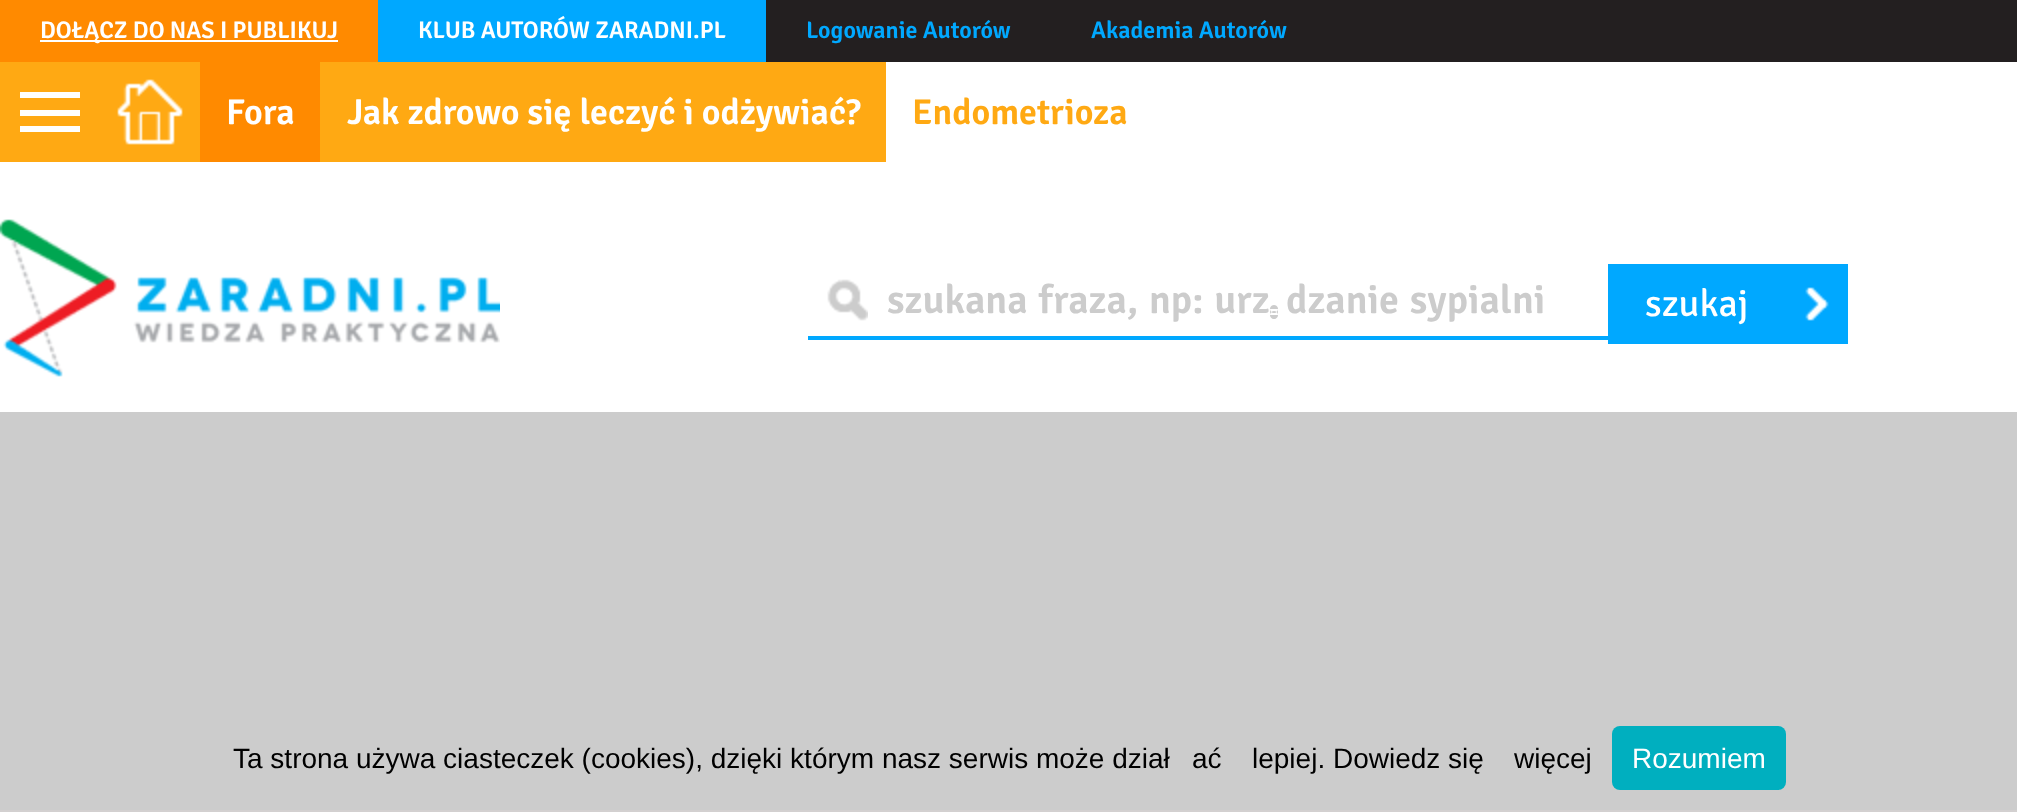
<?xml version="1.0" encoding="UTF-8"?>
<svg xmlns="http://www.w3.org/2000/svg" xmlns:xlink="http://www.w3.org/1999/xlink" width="2017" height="812">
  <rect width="100%" height="100%" fill="#cccccc" />
  <rect y="62" width="2017" height="350" fill="#ffffff" />
  <rect x="766" width="1251" height="62" fill="#231f20" />
  <rect width="378" height="62" fill="#ff8a00" />
  <rect x="40" y="40" width="298" height="2" fill="#ffffff" />
  <rect x="378" width="388" height="62" fill="#00a8ff" />
  <rect y="62" width="200" height="100" fill="#ffa913" />
  <rect x="20" y="92" width="60" height="6" fill="#ffffff" />
  <rect x="20" y="110" width="60" height="6" fill="#ffffff" />
  <rect x="20" y="126" width="60" height="6" fill="#ffffff" />
  <image x="117" y="79" width="66" height="66" xlink:href="image1.png" />
  <rect x="200" y="62" width="120" height="100" fill="#ff8a00" />
  <rect x="320" y="62" width="566" height="100" fill="#ffa913" />
  <image x="0" y="219" width="500" height="158" xlink:href="image2.png" />
  <image x="827" y="279" width="41" height="42" xlink:href="image3.png" />
  <rect x="808" y="336" width="800" height="4" fill="#00a8ff" />
  <rect x="1608" y="264" width="240" height="80" fill="#00a8ff" />
  <image x="1805" y="287" width="24" height="34" xlink:href="image4.png" />
  <rect y="810" width="2017" height="2" fill="#d3d0d0" />
  <rect x="1612" y="726" width="174" height="64" rx="8" fill="#00afbf" />
  <text x="40" y="38" style="font-family: Signika; font-size: 24px; font-weight: 600; fill: #ffffff">DOŁĄCZ DO NAS I PUBLIKUJ</text>
  <text x="418" y="38" style="font-family: Signika; font-size: 24px; font-weight: 600; fill: #ffffff">KLUB AUTORÓW ZARADNI.PL</text>
  <text x="806" y="38" style="font-family: Signika; font-size: 24px; font-weight: 600; fill: #00a8ff">Logowanie Autorów</text>
  <text x="1091" y="38" style="font-family: Signika; font-size: 24px; font-weight: 600; fill: #00a8ff">Akademia Autorów</text>
  <text x="226" y="124" style="font-family: Signika; font-size: 36px; font-weight: 600; fill: #ffffff">Fora</text>
  <text x="347" y="124" style="font-family: Signika; font-size: 36px; font-weight: 600; fill: #ffffff">Jak zdrowo się leczyć i odżywiać?</text>
  <text x="912" y="124" style="font-family: Signika; font-size: 36px; font-weight: 600; fill: #ffa913">Endometrioza</text>
  <text x="887" y="313" word-spacing="2" style="font-family: Signika; font-size: 40px; font-weight: 600; fill: #cccccc">szukana fraza, np: urz</text>
  <text x="1270" y="313" style="font-family: Wavefont; font-size: 40px; font-weight: 800; fill: #cccccc">ą</text>
  <text x="1286" y="313" word-spacing="2" style="font-family: Signika; font-size: 40px; font-weight: 600; fill: #cccccc">dzanie sypialni</text>
  <text x="1645" y="316" style="font-family: Signika; font-size: 38px; fill: #ffffff">szukaj</text>
  <text x="233" y="768" style="font-family: Liberation Sans; font-size: 28px; fill: #000000">Ta strona używa ciasteczek (cookies), dzięki którym nasz serwis może dział</text>
  <text x="1192" y="768" style="font-family: Liberation Sans; font-size: 28px; fill: #000000">ać</text>
  <text x="1252" y="768" style="font-family: Liberation Sans; font-size: 28px; fill: #000000">lepiej. Dowiedz się</text>
  <text x="1514" y="768" style="font-family: Liberation Sans; font-size: 28px; fill: #000000">więcej</text>
  <text x="1632" y="768" style="font-family: Liberation Sans; font-size: 28px; fill: #ffffff">Rozumiem</text>
</svg>
